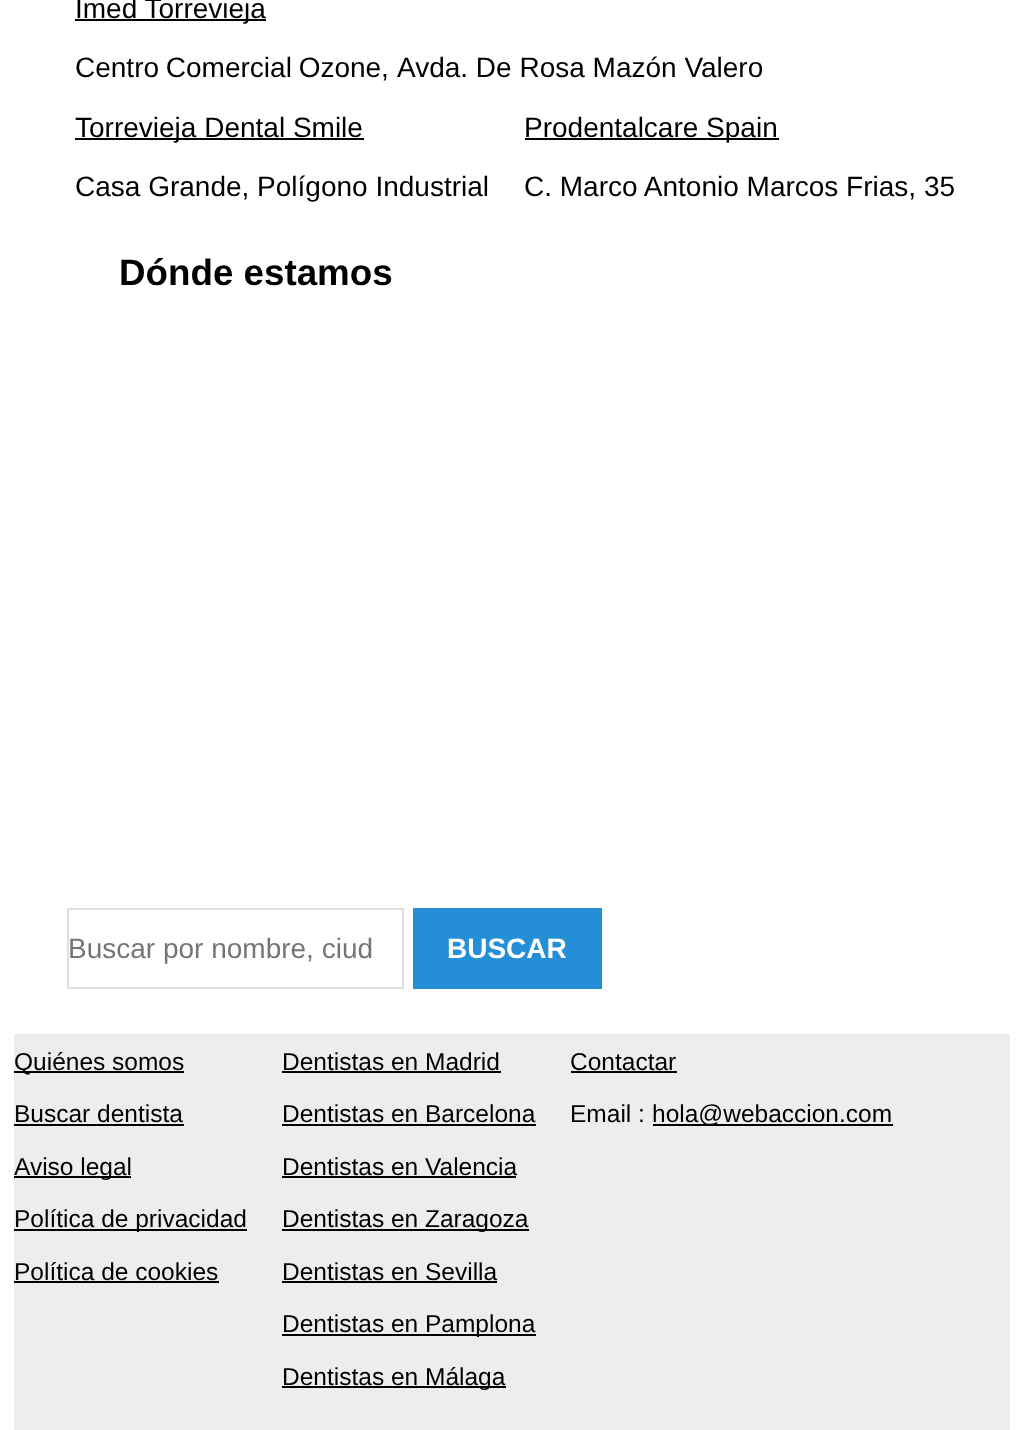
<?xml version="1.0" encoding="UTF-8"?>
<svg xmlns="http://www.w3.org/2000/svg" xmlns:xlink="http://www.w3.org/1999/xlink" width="1023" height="1430">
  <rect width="100%" height="100%" fill="#ffffff" />
  <rect x="75" y="19" width="191" height="2" fill="#000000" />
  <rect x="75" y="138" width="289" height="2" fill="#000000" />
  <rect x="525" y="138" width="254" height="2" fill="#000000" />
  <rect x="68" y="909" width="335" height="79" fill="none" stroke="#dedede" stroke-width="2" />
  <rect x="413" y="908" width="189" height="81" fill="#248fd6" />
  <rect x="14" y="1034" width="996" height="396" fill="#ededed" />
  <rect x="14" y="1071" width="170" height="2" fill="#000000" />
  <rect x="14" y="1124" width="170" height="2" fill="#000000" />
  <rect x="14" y="1176" width="117" height="2" fill="#000000" />
  <rect x="14" y="1229" width="233" height="2" fill="#000000" />
  <rect x="14" y="1281" width="205" height="2" fill="#000000" />
  <rect x="282" y="1071" width="219" height="2" fill="#000000" />
  <rect x="282" y="1124" width="254" height="2" fill="#000000" />
  <rect x="282" y="1176" width="234" height="2" fill="#000000" />
  <rect x="282" y="1229" width="247" height="2" fill="#000000" />
  <rect x="282" y="1281" width="215" height="2" fill="#000000" />
  <rect x="282" y="1334" width="254" height="2" fill="#000000" />
  <rect x="282" y="1386" width="224" height="2" fill="#000000" />
  <rect x="571" y="1071" width="106" height="2" fill="#000000" />
  <rect x="653" y="1124" width="240" height="2" fill="#000000" />
  <text x="75" y="18" style="font-family: Liberation Sans; font-size: 28px; fill: #000000">Imed Torrevieja</text>
  <text x="75" y="77" word-spacing="-1" style="font-family: Liberation Sans; font-size: 28px; fill: #000000">Centro Comercial Ozone,</text>
  <text x="397" y="77" style="font-family: Liberation Sans; font-size: 28px; fill: #000000">Avda. De Rosa Mazón Valero</text>
  <text x="75" y="137" style="font-family: Liberation Sans; font-size: 28px; fill: #000000">Torrevieja Dental Smile</text>
  <text x="75" y="196" style="font-family: Liberation Sans; font-size: 28px; fill: #000000">Casa Grande, Polígono Industrial</text>
  <text x="524" y="137" style="font-family: Liberation Sans; font-size: 28px; fill: #000000">Prodentalcare Spain</text>
  <text x="524" y="196" style="font-family: Liberation Sans; font-size: 28px; fill: #000000">C. Marco Antonio Marcos Frias, 35</text>
  <text x="119" y="285" style="font-family: Liberation Sans; font-size: 36.75px; font-weight: bold; fill: #000000">Dónde estamos</text>
  <text x="68" y="958" style="font-family: Liberation Sans; font-size: 28px; fill: #757575">Buscar por nombre, ciud</text>
  <text x="447" y="958" style="font-family: Liberation Sans; font-size: 28px; font-weight: bold; fill: #ffffff">BUSCAR</text>
  <text x="14" y="1070" style="font-family: Liberation Sans; font-size: 24.5px; fill: #000000">Quiénes somos</text>
  <text x="14" y="1122" style="font-family: Liberation Sans; font-size: 24.5px; fill: #000000">Buscar dentista</text>
  <text x="14" y="1175" style="font-family: Liberation Sans; font-size: 24.5px; fill: #000000">Aviso legal</text>
  <text x="14" y="1227" style="font-family: Liberation Sans; font-size: 24.5px; fill: #000000">Política de privacidad</text>
  <text x="14" y="1280" style="font-family: Liberation Sans; font-size: 24.5px; fill: #000000">Política de cookies</text>
  <text x="282" y="1070" style="font-family: Liberation Sans; font-size: 24.5px; fill: #000000">Dentistas en Madrid</text>
  <text x="282" y="1122" style="font-family: Liberation Sans; font-size: 24.5px; fill: #000000">Dentistas en Barcelona</text>
  <text x="282" y="1175" style="font-family: Liberation Sans; font-size: 24.5px; fill: #000000">Dentistas en Valencia</text>
  <text x="282" y="1227" style="font-family: Liberation Sans; font-size: 24.5px; fill: #000000">Dentistas en Zaragoza</text>
  <text x="282" y="1280" style="font-family: Liberation Sans; font-size: 24.5px; fill: #000000">Dentistas en Sevilla</text>
  <text x="282" y="1332" style="font-family: Liberation Sans; font-size: 24.5px; fill: #000000">Dentistas en Pamplona</text>
  <text x="282" y="1385" style="font-family: Liberation Sans; font-size: 24.5px; fill: #000000">Dentistas en Málaga</text>
  <text x="570" y="1070" style="font-family: Liberation Sans; font-size: 24.5px; fill: #000000">Contactar</text>
  <text x="570" y="1122" style="font-family: Liberation Sans; font-size: 24.5px; fill: #000000">Email :</text>
  <text x="652" y="1122" style="font-family: Liberation Sans; font-size: 24.5px; fill: #000000">hola@webaccion.com</text>
</svg>
